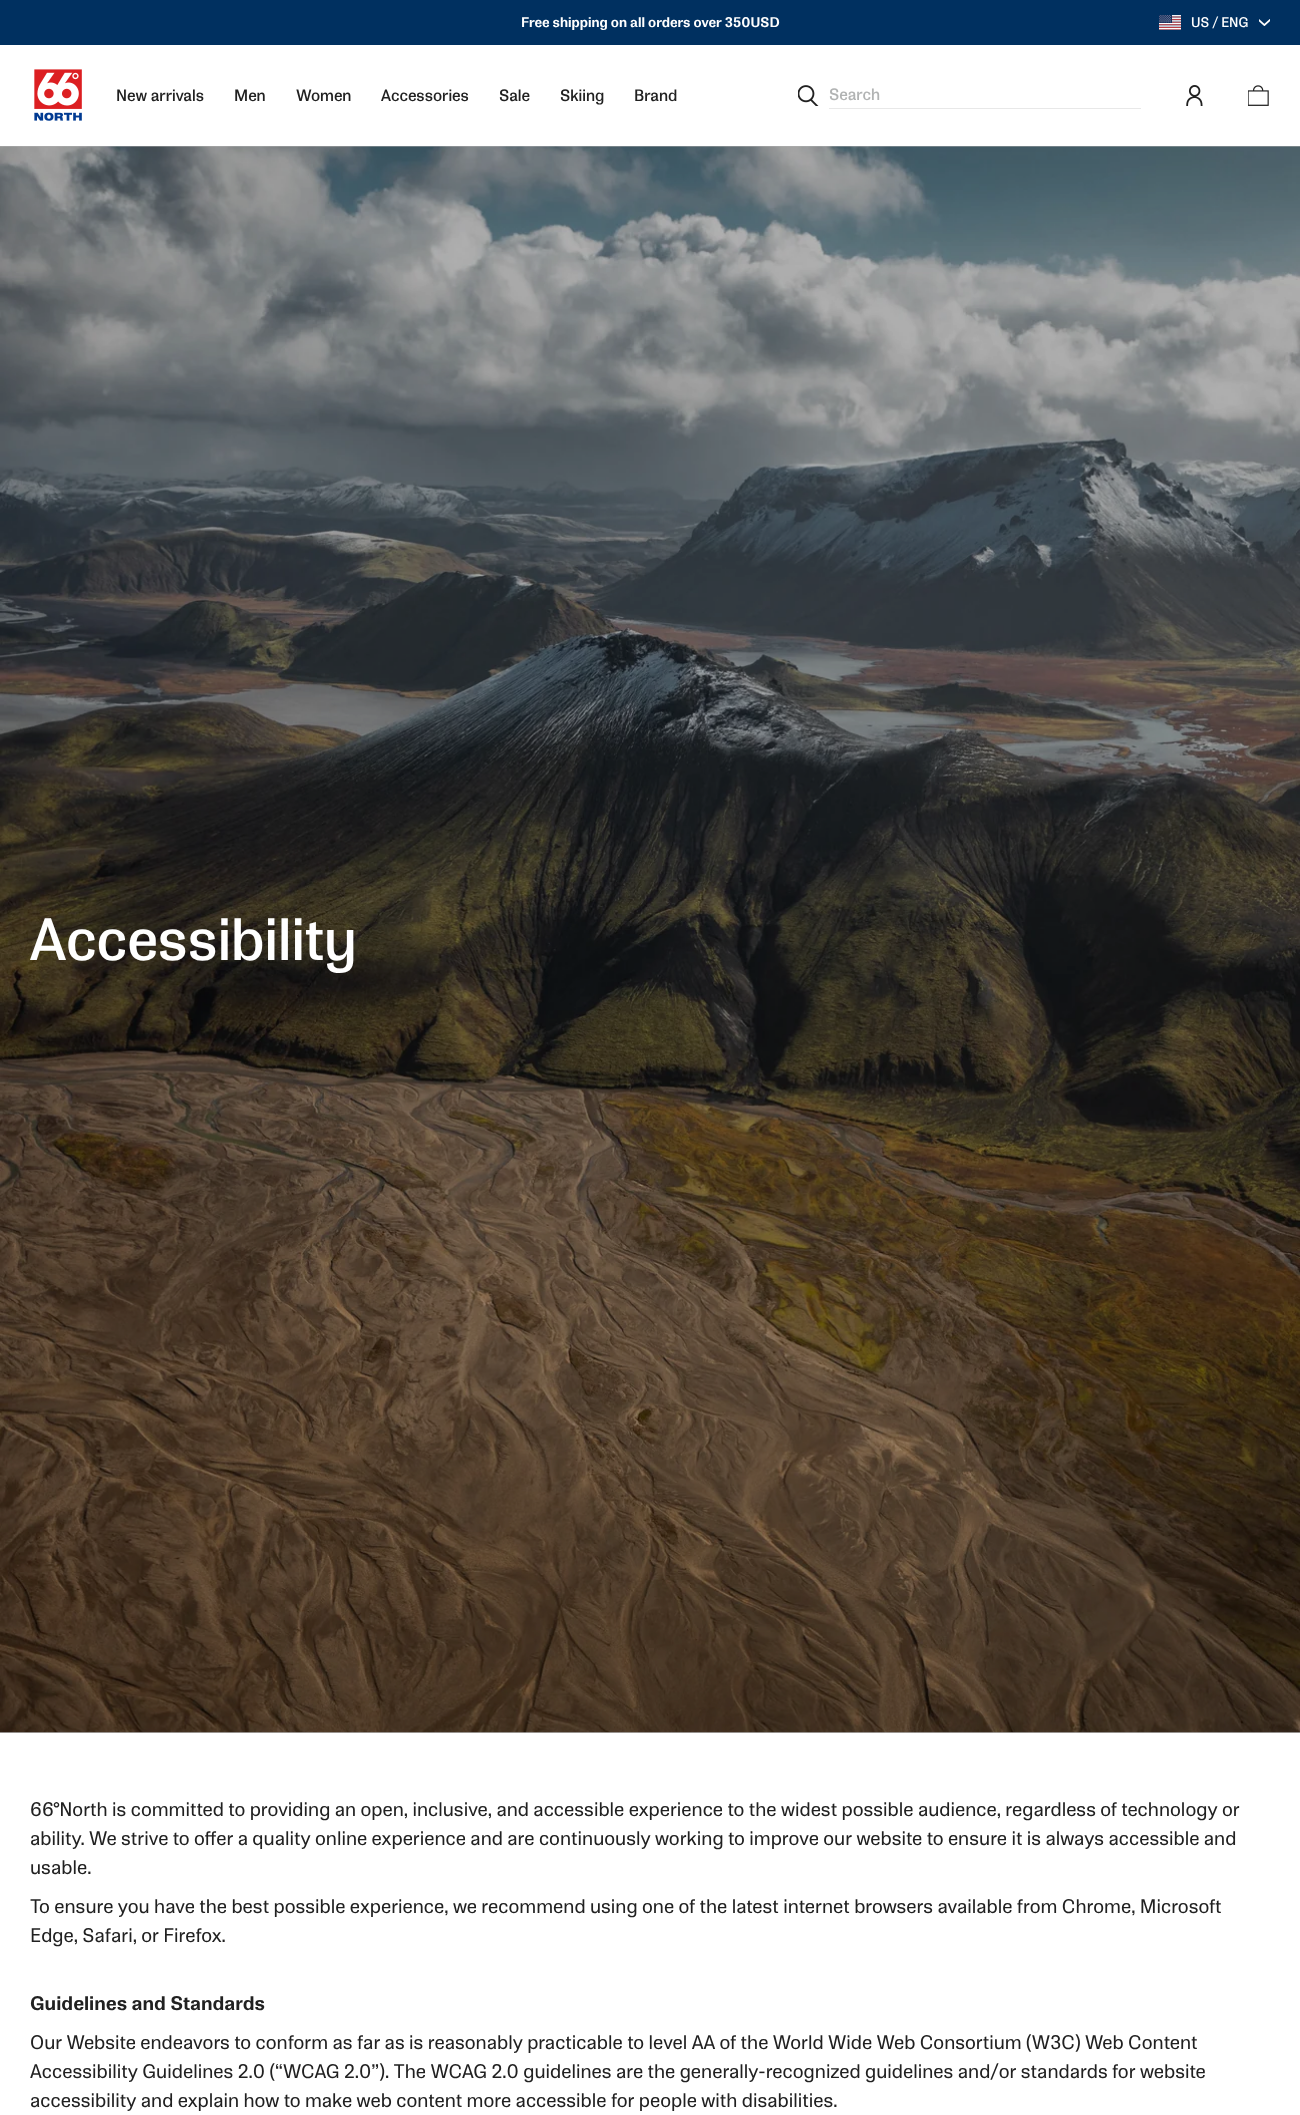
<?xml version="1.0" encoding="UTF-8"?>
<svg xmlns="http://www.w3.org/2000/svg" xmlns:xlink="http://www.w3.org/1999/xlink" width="1300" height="2115">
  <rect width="100%" height="100%" fill="#ffffff" />
  <rect y="146" width="1300" height="1587" fill="#b3b3b3" />
  <rect width="1300" height="45" fill="#003060" />
  <image x="1159" y="15" width="22" height="15" xlink:href="image1.png" />
  <image x="1259" y="19" width="11" height="7" xlink:href="image2.png" />
  <image x="34" y="69" width="48" height="52" xlink:href="image3.png" />
  <image x="798" y="85" width="21" height="21" xlink:href="image4.png" />
  <rect x="829" y="108" width="312" height="1" fill="#e8e8e8" />
  <image x="1186" y="85" width="17" height="21" xlink:href="image5.png" />
  <image x="1248" y="85" width="21" height="21" xlink:href="image6.png" />
  <image x="0" y="146" width="1300" height="1587" xlink:href="image7.png" />
  <text x="521" y="27" style="font-family: 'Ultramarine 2'; font-size: 13.75px; font-weight: bold; fill: #ffffff">Free shipping on all orders over 350USD</text>
  <text x="1191" y="27" style="font-family: 'Ultramarine 2'; font-size: 13.75px; fill: #ffffff">US / ENG</text>
  <text x="116" y="101" style="font-family: 'Ultramarine 2'; font-size: 16.25px; fill: #212121">New arrivals</text>
  <text x="234" y="101" style="font-family: 'Ultramarine 2'; font-size: 16.25px; fill: #212121">Men</text>
  <text x="296" y="101" style="font-family: 'Ultramarine 2'; font-size: 16.25px; fill: #212121">Women</text>
  <text x="381" y="101" style="font-family: 'Ultramarine 2'; font-size: 16.25px; fill: #212121">Accessories</text>
  <text x="499" y="101" style="font-family: 'Ultramarine 2'; font-size: 16.25px; fill: #212121">Sale</text>
  <text x="560" y="101" style="font-family: 'Ultramarine 2'; font-size: 16.25px; fill: #212121">Skiing</text>
  <text x="634" y="101" style="font-family: 'Ultramarine 2'; font-size: 16.25px; fill: #212121">Brand</text>
  <text x="829" y="100" style="font-family: 'Ultramarine 2'; font-size: 16.25px; fill: #b1b3b3">Search</text>
  <text x="30" y="960" style="font-family: 'Ultramarine 2'; font-size: 58.75px; fill: #ffffff">Accessibility</text>
  <text x="30" y="1816" style="font-family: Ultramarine; font-size: 19.38px; fill: #212121">66°North is committed to providing an open, inclusive, and accessible experience to the widest possible audience, regardless of technology or</text>
  <text x="30" y="1845" style="font-family: Ultramarine; font-size: 19.38px; fill: #212121">ability. We strive to offer a quality online experience and are continuously working to improve our website to ensure it is always accessible and</text>
  <text x="30" y="1874" style="font-family: Ultramarine; font-size: 19.38px; fill: #212121">usable.</text>
  <text x="30" y="1913" style="font-family: Ultramarine; font-size: 19.38px; fill: #212121">To ensure you have the best possible experience, we recommend using one of the latest internet browsers available from Chrome, Microsoft</text>
  <text x="30" y="1942" style="font-family: Ultramarine; font-size: 19.38px; fill: #212121">Edge, Safari, or Firefox.</text>
  <text x="30" y="2010" style="font-family: Ultramarine; font-size: 19.38px; font-weight: bold; fill: #212121">Guidelines and Standards</text>
  <text x="30" y="2049" style="font-family: Ultramarine; font-size: 19.38px; fill: #212121">Our Website endeavors to conform as far as is reasonably practicable to level AA of the World Wide Web Consortium (W3C) Web Content</text>
  <text x="30" y="2078" style="font-family: Ultramarine; font-size: 19.38px; fill: #212121">Accessibility Guidelines 2.0 (“WCAG 2.0”). The WCAG 2.0 guidelines are the generally-recognized guidelines and/or standards for website</text>
  <text x="30" y="2107" style="font-family: Ultramarine; font-size: 19.38px; fill: #212121">accessibility and explain how to make web content more accessible for people with disabilities.</text>
</svg>
